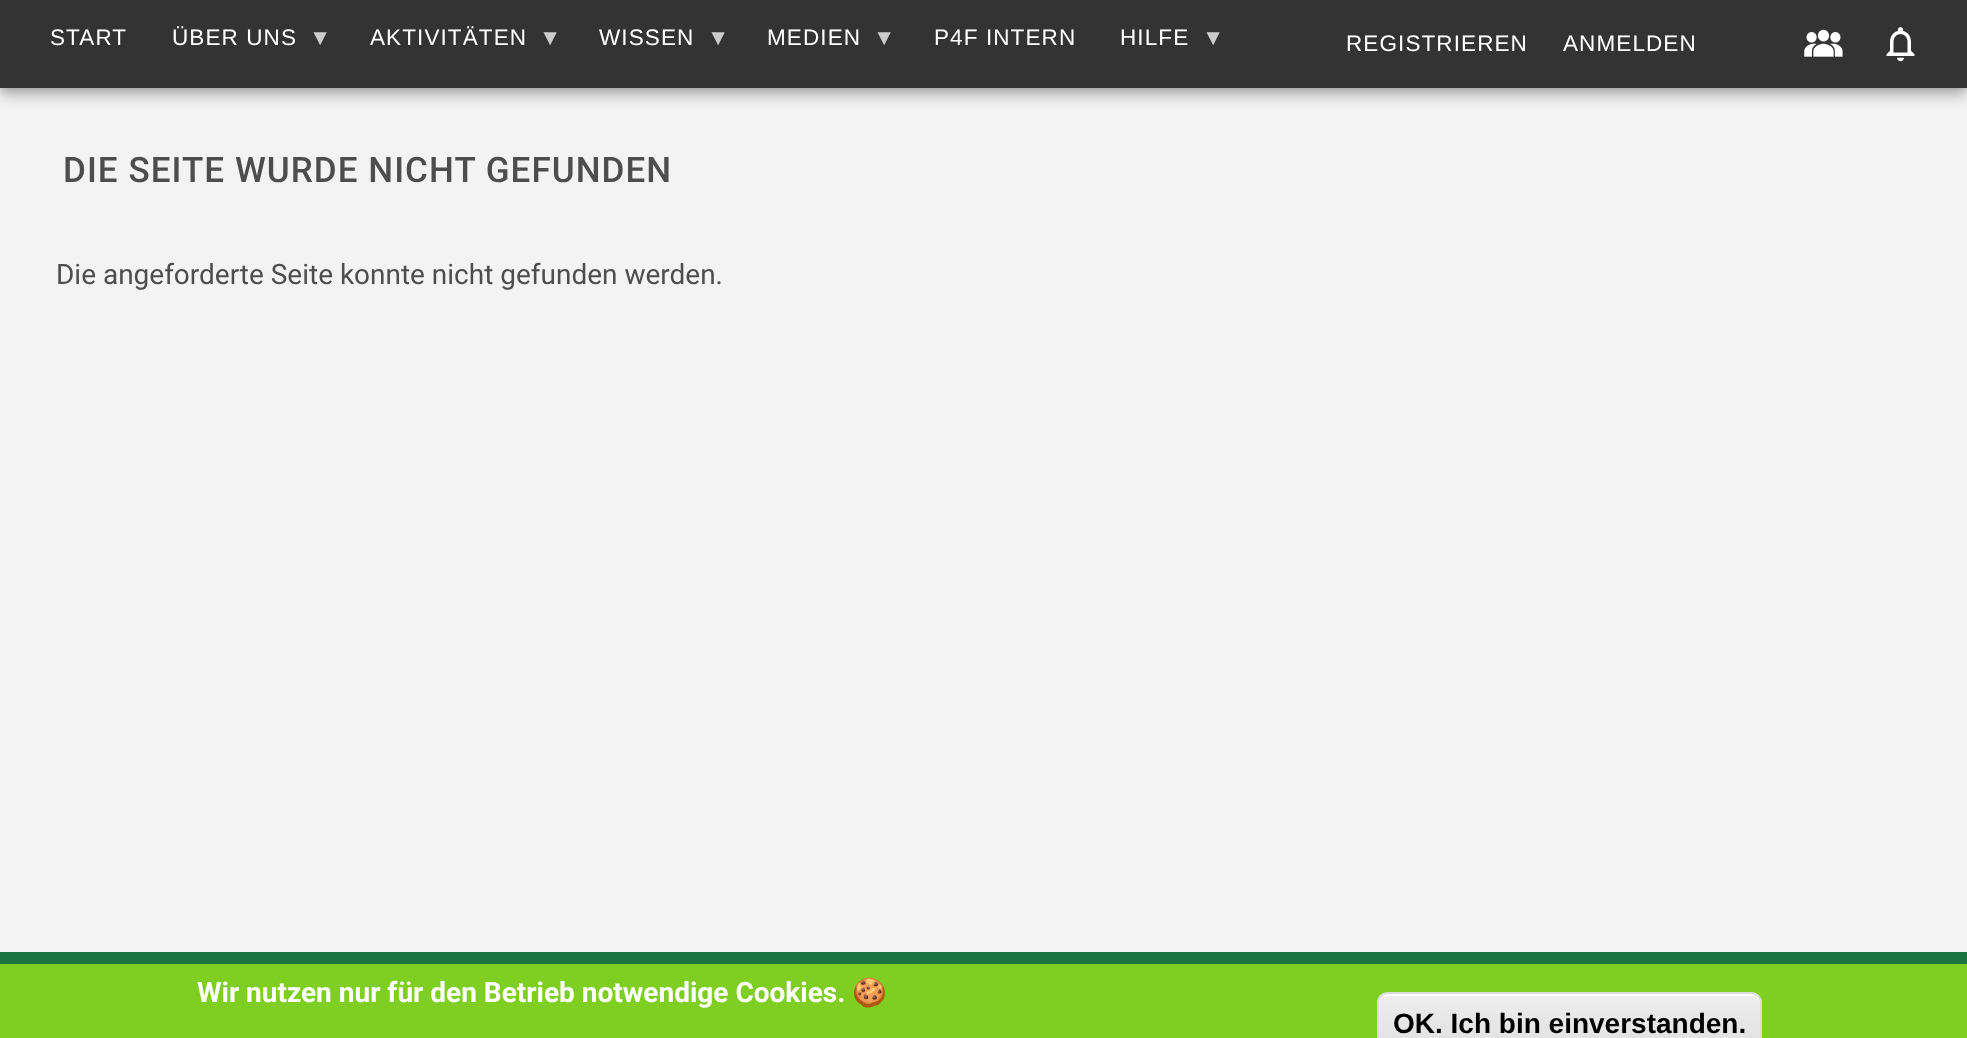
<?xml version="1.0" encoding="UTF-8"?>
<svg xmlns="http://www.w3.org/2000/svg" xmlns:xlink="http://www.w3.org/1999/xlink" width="1967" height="1038">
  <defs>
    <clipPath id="clip1"><rect x="1377" y="992" width="385" height="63" rx="11" /></clipPath>
    <linearGradient id="g1" gradientUnits="userSpaceOnUse" x1="1570" y1="994" x2="1570" y2="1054"><stop offset="0.05" stop-color="#ededed" /><stop offset="1" stop-color="#dfdfdf" /></linearGradient>
  </defs>
  <rect width="100%" height="100%" fill="#f3f3f3" />
  <rect y="7" width="1967" height="88" fill="#000000" fill-opacity="0.28" filter="blur(7px)" />
  <rect width="1967" height="88" fill="#000000" fill-opacity="0.14" filter="blur(3.5px)" />
  <rect width="1967" height="88" fill="#333333" />
  <image x="1804" y="29" width="39" height="28" xlink:href="image1.png" />
  <image x="1886" y="27" width="29" height="35" xlink:href="image2.png" />
  <rect y="952" width="1967" height="12" fill="#1b7340" />
  <rect y="964" width="1967" height="74" fill="#7fce22" />
  <g clip-path="url(#clip1)">
    <rect x="1377" y="994" width="385" height="44" fill="url(#g1)" />
  </g>
  <path d="M 1388 996 h 364 c 5 0 8 4 8 8 v 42 c 0 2 0 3 -1 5 c 1 -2 2 -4 2 -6 v -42 c 0 -5 -4 -9 -9 -9 h -364 c -5 0 -9 4 -9 9 v 1 c 0 -4 4 -8 9 -8 z" fill="#ffffff" />
  <rect x="1378" y="993" width="383" height="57" rx="10" fill="none" stroke="#dcdcdc" stroke-width="2" />
  <text x="50" y="45" style="font-family: Liberation Sans; font-size: 22.5px; letter-spacing: 1.1px; fill: #ffffff">START</text>
  <text x="172" y="45" style="font-family: Liberation Sans; font-size: 22.5px; letter-spacing: 1.1px; fill: #ffffff">ÜBER UNS</text>
  <text x="309" y="45" style="font-family: Liberation Sans; font-size: 22.5px; letter-spacing: 1.1px; fill: #cccccc">▼</text>
  <text x="370" y="45" style="font-family: Liberation Sans; font-size: 22.5px; letter-spacing: 1.1px; fill: #ffffff">AKTIVITÄTEN</text>
  <text x="539" y="45" style="font-family: Liberation Sans; font-size: 22.5px; letter-spacing: 1.1px; fill: #cccccc">▼</text>
  <text x="599" y="45" style="font-family: Liberation Sans; font-size: 22.5px; letter-spacing: 1.1px; fill: #ffffff">WISSEN</text>
  <text x="707" y="45" style="font-family: Liberation Sans; font-size: 22.5px; letter-spacing: 1.1px; fill: #cccccc">▼</text>
  <text x="767" y="45" style="font-family: Liberation Sans; font-size: 22.5px; letter-spacing: 1.1px; fill: #ffffff">MEDIEN</text>
  <text x="873" y="45" style="font-family: Liberation Sans; font-size: 22.5px; letter-spacing: 1.1px; fill: #cccccc">▼</text>
  <text x="934" y="45" style="font-family: Liberation Sans; font-size: 22.5px; letter-spacing: 1.1px; fill: #ffffff">P4F INTERN</text>
  <text x="1120" y="45" style="font-family: Liberation Sans; font-size: 22.5px; letter-spacing: 1.1px; fill: #ffffff">HILFE</text>
  <text x="1202" y="45" style="font-family: Liberation Sans; font-size: 22.5px; letter-spacing: 1.1px; fill: #cccccc">▼</text>
  <text x="1346" y="51" style="font-family: Liberation Sans; font-size: 22.5px; letter-spacing: 1.1px; fill: #ffffff">REGISTRIEREN</text>
  <text x="1563" y="51" style="font-family: Liberation Sans; font-size: 22.5px; letter-spacing: 1.1px; fill: #ffffff">ANMELDEN</text>
  <text x="63" y="182" style="font-family: Roboto; font-size: 35px; font-weight: 500; letter-spacing: 1.05px; fill: #4d4d4d">DIE SEITE WURDE NICHT GEFUNDEN</text>
  <text x="56" y="284" style="font-family: Roboto; font-size: 28px; fill: #4d4d4d">Die angeforderte Seite konnte nicht gefunden werden.</text>
  <text x="197" y="1002" style="font-family: Roboto; font-size: 28px; font-weight: bold; fill: #ffffff">Wir nutzen nur für den Betrieb notwendige Cookies.</text>
  <text x="852" y="1002" style="font-family: Noto Color Emoji; font-size: 28px; font-weight: bold; fill: #ffffff">🍪</text>
  <text x="1393" y="1033" style="font-family: Liberation Sans; font-size: 28px; font-weight: bold; fill: #000000">OK. Ich bin einverstanden.</text>
</svg>
